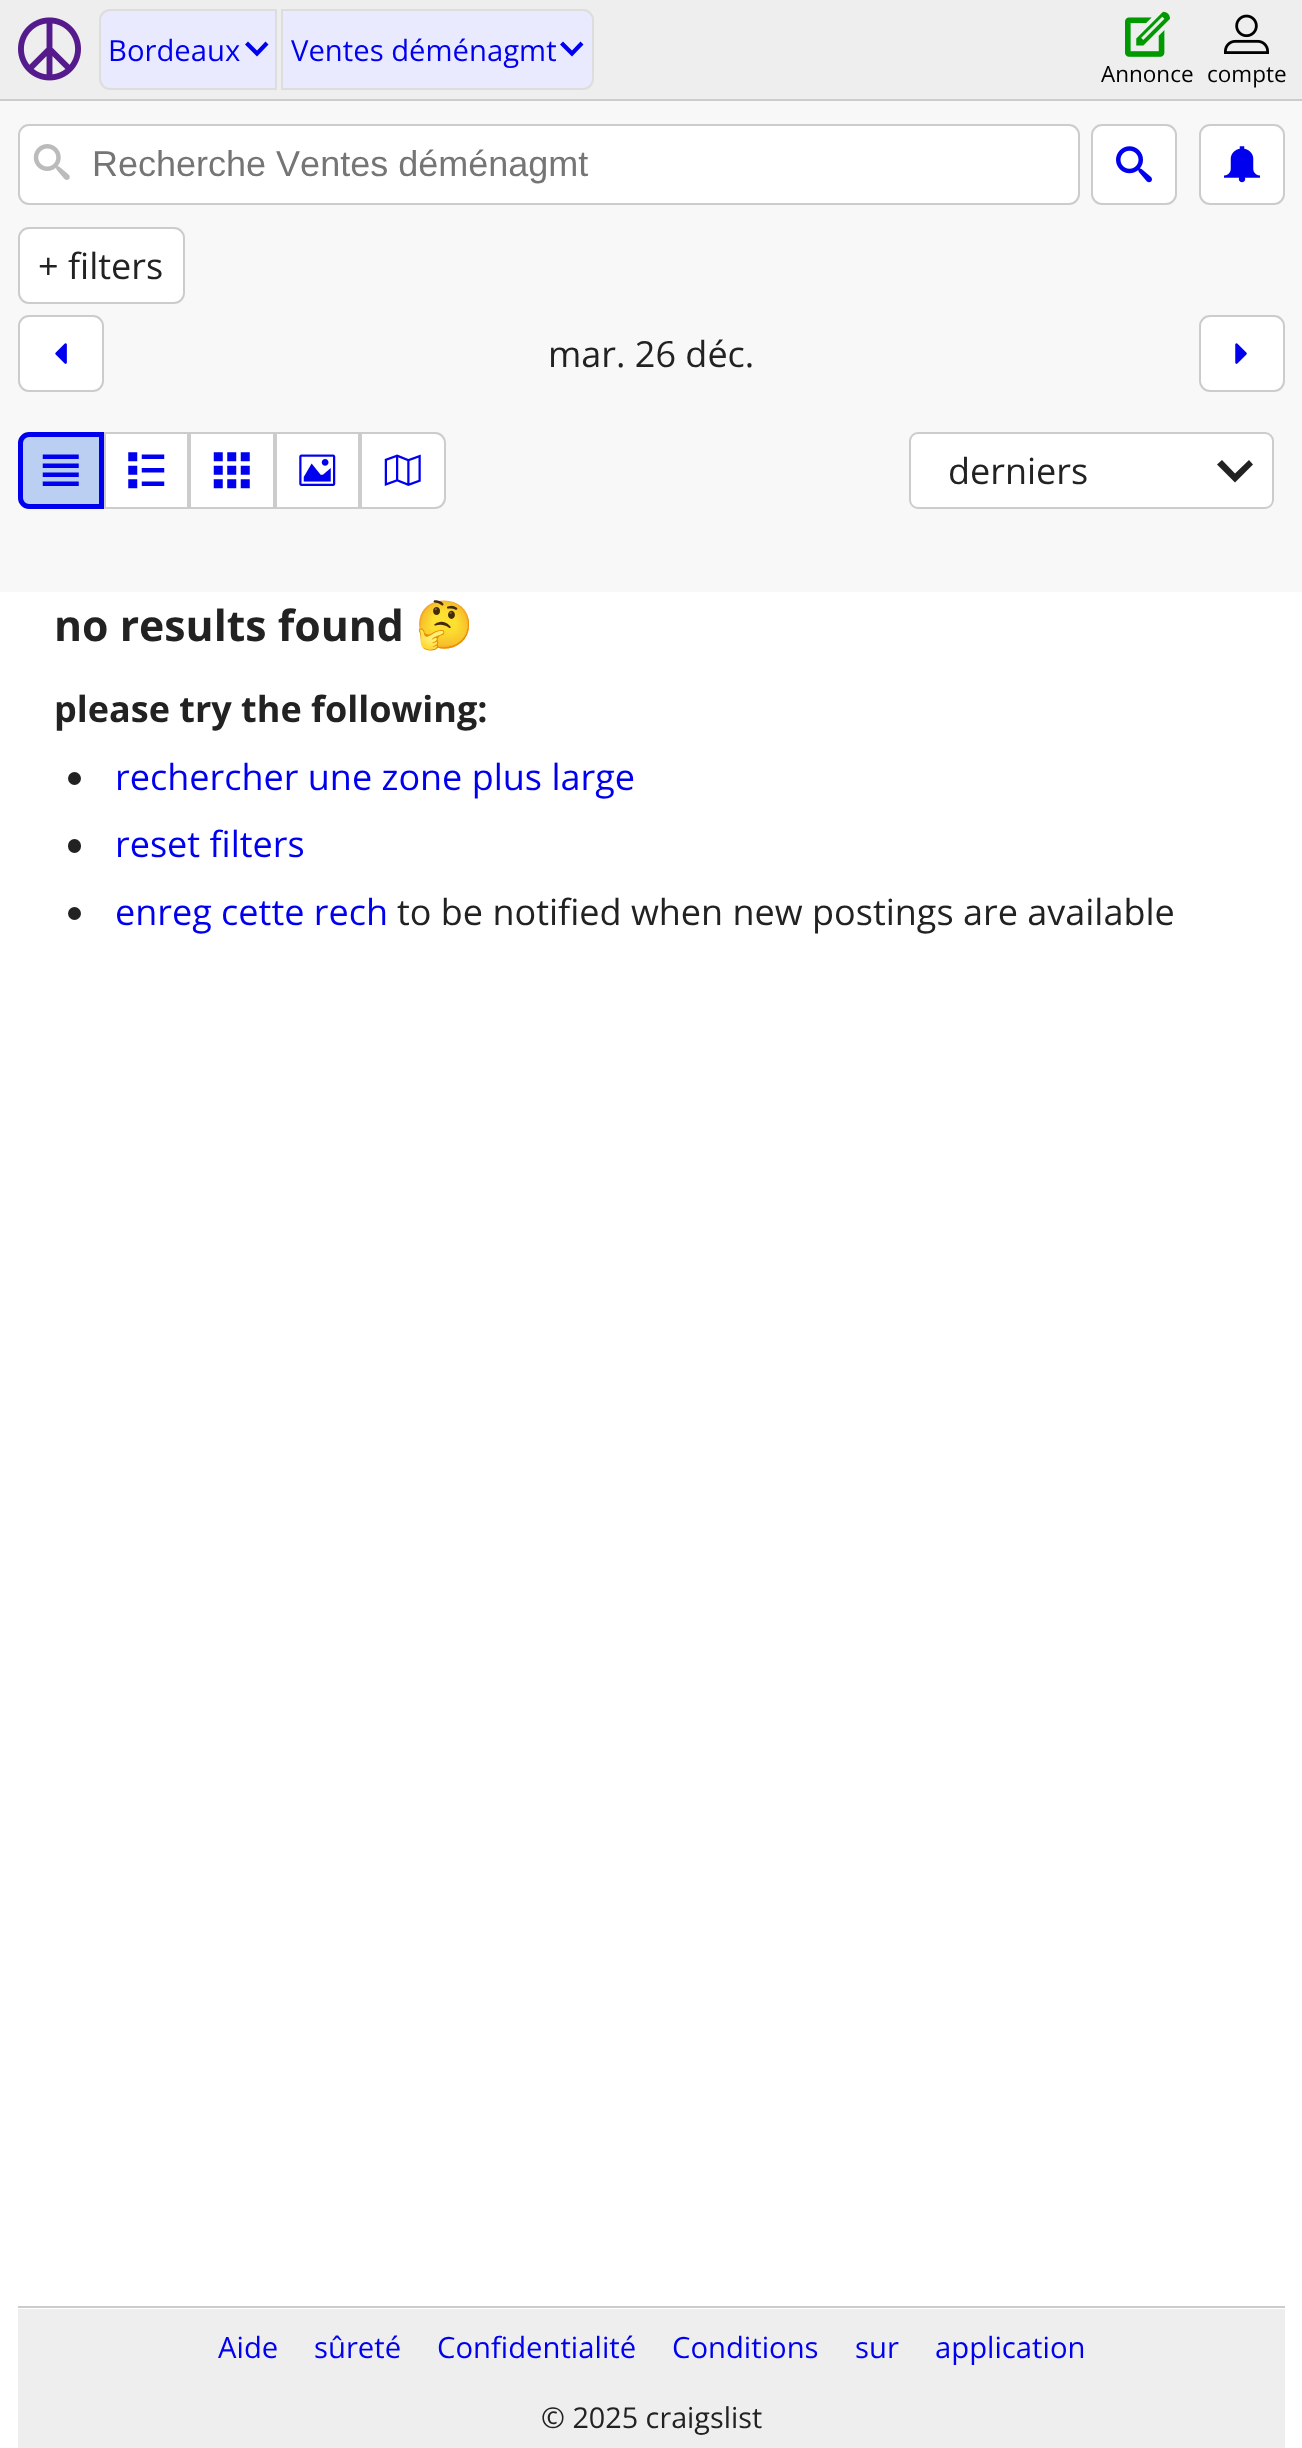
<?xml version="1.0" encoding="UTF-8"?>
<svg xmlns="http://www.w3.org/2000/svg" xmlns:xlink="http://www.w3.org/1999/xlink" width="1302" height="2448">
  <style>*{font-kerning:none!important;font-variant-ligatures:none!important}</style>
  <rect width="100%" height="100%" fill="#ffffff" />
  <rect width="1302" height="99" fill="#eeeeee" />
  <rect y="99" width="1302" height="2" fill="#cccccc" />
  <image x="18" y="17" width="63" height="64" xlink:href="image1.png" />
  <path d="M 110 10 h 166 v 79 h -166 c -5.5 0 -10 -4.5 -10 -10 v -59 c 0 -5.5 4.5 -10 10 -10 z" fill="#eaeaff" stroke="#dddddd" stroke-width="2" />
  <path d="M 268.5 44.5 l -3 -3 l -8.5 9 l -9 -9 l -3 3 l 12 12 z" fill="#0000ee" />
  <path d="M 282 10 h 301 c 5.5 0 10 4.5 10 10 v 59 c 0 5.5 -4.5 10 -10 10 h -301 z" fill="#eaeaff" stroke="#dddddd" stroke-width="2" />
  <path d="M 583.5 44.5 l -3 -3 l -8.5 9 l -9 -9 l -3 3 l 12 12 z" fill="#0000ee" />
  <image x="1125" y="11" width="45" height="46" xlink:href="image2.png" />
  <image x="1224" y="14" width="45" height="40" xlink:href="image3.png" />
  <rect y="101" width="1302" height="491" fill="#f8f8f8" />
  <rect x="19" y="125" width="1060" height="79" rx="10" fill="#ffffff" stroke="#cccccc" stroke-width="2" />
  <image x="33" y="144" width="37" height="36" xlink:href="image4.png" />
  <rect x="1092" y="125" width="84" height="79" rx="10" fill="#ffffff" stroke="#cccccc" stroke-width="2" />
  <image x="1116" y="146" width="36" height="37" xlink:href="image5.png" />
  <rect x="1200" y="125" width="84" height="79" rx="10" fill="#ffffff" stroke="#cccccc" stroke-width="2" />
  <image x="1224" y="146" width="36" height="37" xlink:href="image6.png" />
  <rect x="19" y="228" width="165" height="75" rx="10" fill="#ffffff" stroke="#cccccc" stroke-width="2" />
  <rect x="19" y="316" width="84" height="75" rx="10" fill="#ffffff" stroke="#cccccc" stroke-width="2" />
  <image x="55" y="343" width="12" height="21" xlink:href="image7.png" />
  <rect x="1200" y="316" width="84" height="75" rx="10" fill="#ffffff" stroke="#cccccc" stroke-width="2" />
  <image x="1235" y="343" width="12" height="21" xlink:href="image8.png" />
  <path d="M 29 434.5 h 72.5 v 72 h -72.5 c -4.5 0 -8.5 -4 -8.5 -8.5 v -55 c 0 -4.5 4 -8.5 8.5 -8.5 z" fill="#bacff2" stroke="#0000ee" stroke-width="5" />
  <image x="42" y="454" width="37" height="32" xlink:href="image9.png" />
  <rect x="105" y="433" width="83" height="75" fill="#ffffff" stroke="#cccccc" stroke-width="2" />
  <image x="128" y="452" width="37" height="37" xlink:href="image10.png" />
  <rect x="190" y="433" width="84" height="75" fill="#ffffff" stroke="#cccccc" stroke-width="2" />
  <image x="213" y="452" width="37" height="37" xlink:href="image11.png" />
  <rect x="276" y="433" width="83" height="75" fill="#ffffff" stroke="#cccccc" stroke-width="2" />
  <image x="299" y="454" width="37" height="32" xlink:href="image12.png" />
  <path d="M 361 433 h 74 c 5.5 0 10 4.5 10 10 v 55 c 0 5.5 -4.5 10 -10 10 h -74 z" fill="#ffffff" stroke="#cccccc" stroke-width="2" />
  <image x="384" y="454" width="37" height="32" xlink:href="image13.png" />
  <rect x="910" y="433" width="363" height="75" rx="8" fill="#ffffff" stroke="#cccccc" stroke-width="2" />
  <path d="M 1253 464.5 l -4 -4.5 l -14 13.5 l -13 -13.5 l -5 4.5 l 18 18 z" fill="#222222" />
  <circle cx="74.5" cy="778.5" r="6.5" fill="#222222" />
  <rect x="68" y="839" width="13" height="14" rx="6.5" fill="#222222" />
  <circle cx="74.5" cy="913.5" r="6.5" fill="#222222" />
  <rect x="18" y="2309" width="1267" height="139" fill="#eeeeee" />
  <rect x="18" y="2306" width="1267" height="2" fill="#cccccc" />
  <text x="108" y="61" style="font-family: Open Sans; font-size: 29.25px; fill: #0000ee">Bordeaux</text>
  <text x="291" y="61" style="font-family: Open Sans; font-size: 29.25px; fill: #0000ee">Ventes déménagmt</text>
  <text x="1101" y="82" style="font-family: Open Sans; font-size: 22.5px; fill: #000000">Annonce</text>
  <text x="1207" y="82" style="font-family: Open Sans; font-size: 22.5px; fill: #000000">compte</text>
  <text x="92" y="176" style="font-family: Liberation Sans; font-size: 36px; fill: #757575">Recherche Ventes déménagmt</text>
  <text x="38" y="279" style="font-family: Open Sans; font-size: 36px; fill: #222222">+ filters</text>
  <text x="548" y="367" style="font-family: Open Sans; font-size: 36px; fill: #222222">mar. 26 déc.</text>
  <text x="948" y="484" style="font-family: Open Sans; font-size: 36px; fill: #222222">derniers</text>
  <text x="54" y="641" style="font-family: Open Sans; font-size: 42.75px; font-weight: bold; fill: #222222">no results found</text>
  <text x="415" y="641" style="font-family: Noto Color Emoji; font-size: 47px; font-weight: bold; fill: #222222">🤔</text>
  <text x="54" y="722" style="font-family: Open Sans; font-size: 36px; font-weight: bold; fill: #222222">please try the following:</text>
  <text x="115" y="790" style="font-family: Open Sans; font-size: 36px; fill: #0000ee">rechercher une zone plus large</text>
  <text x="115" y="857" style="font-family: Open Sans; font-size: 36px; fill: #0000ee">reset filters</text>
  <text x="115" y="925" style="font-family: Open Sans; font-size: 36px; fill: #0000ee">enreg cette rech</text>
  <text x="397" y="925" style="font-family: Open Sans; font-size: 36px; fill: #222222">to be notified when new postings are available</text>
  <text x="218" y="2358" style="font-family: Open Sans; font-size: 29.25px; fill: #0000ee">Aide</text>
  <text x="314" y="2358" style="font-family: Open Sans; font-size: 29.25px; fill: #0000ee">sûreté</text>
  <text x="437" y="2358" style="font-family: Open Sans; font-size: 29.25px; fill: #0000ee">Confidentialité</text>
  <text x="672" y="2358" style="font-family: Open Sans; font-size: 29.25px; fill: #0000ee">Conditions</text>
  <text x="855" y="2358" style="font-family: Open Sans; font-size: 29.25px; fill: #0000ee">sur</text>
  <text x="935" y="2358" style="font-family: Open Sans; font-size: 29.25px; fill: #0000ee">application</text>
  <text x="541" y="2428" style="font-family: Open Sans; font-size: 28.75px; fill: #222222">© 2025 craigslist</text>
</svg>
